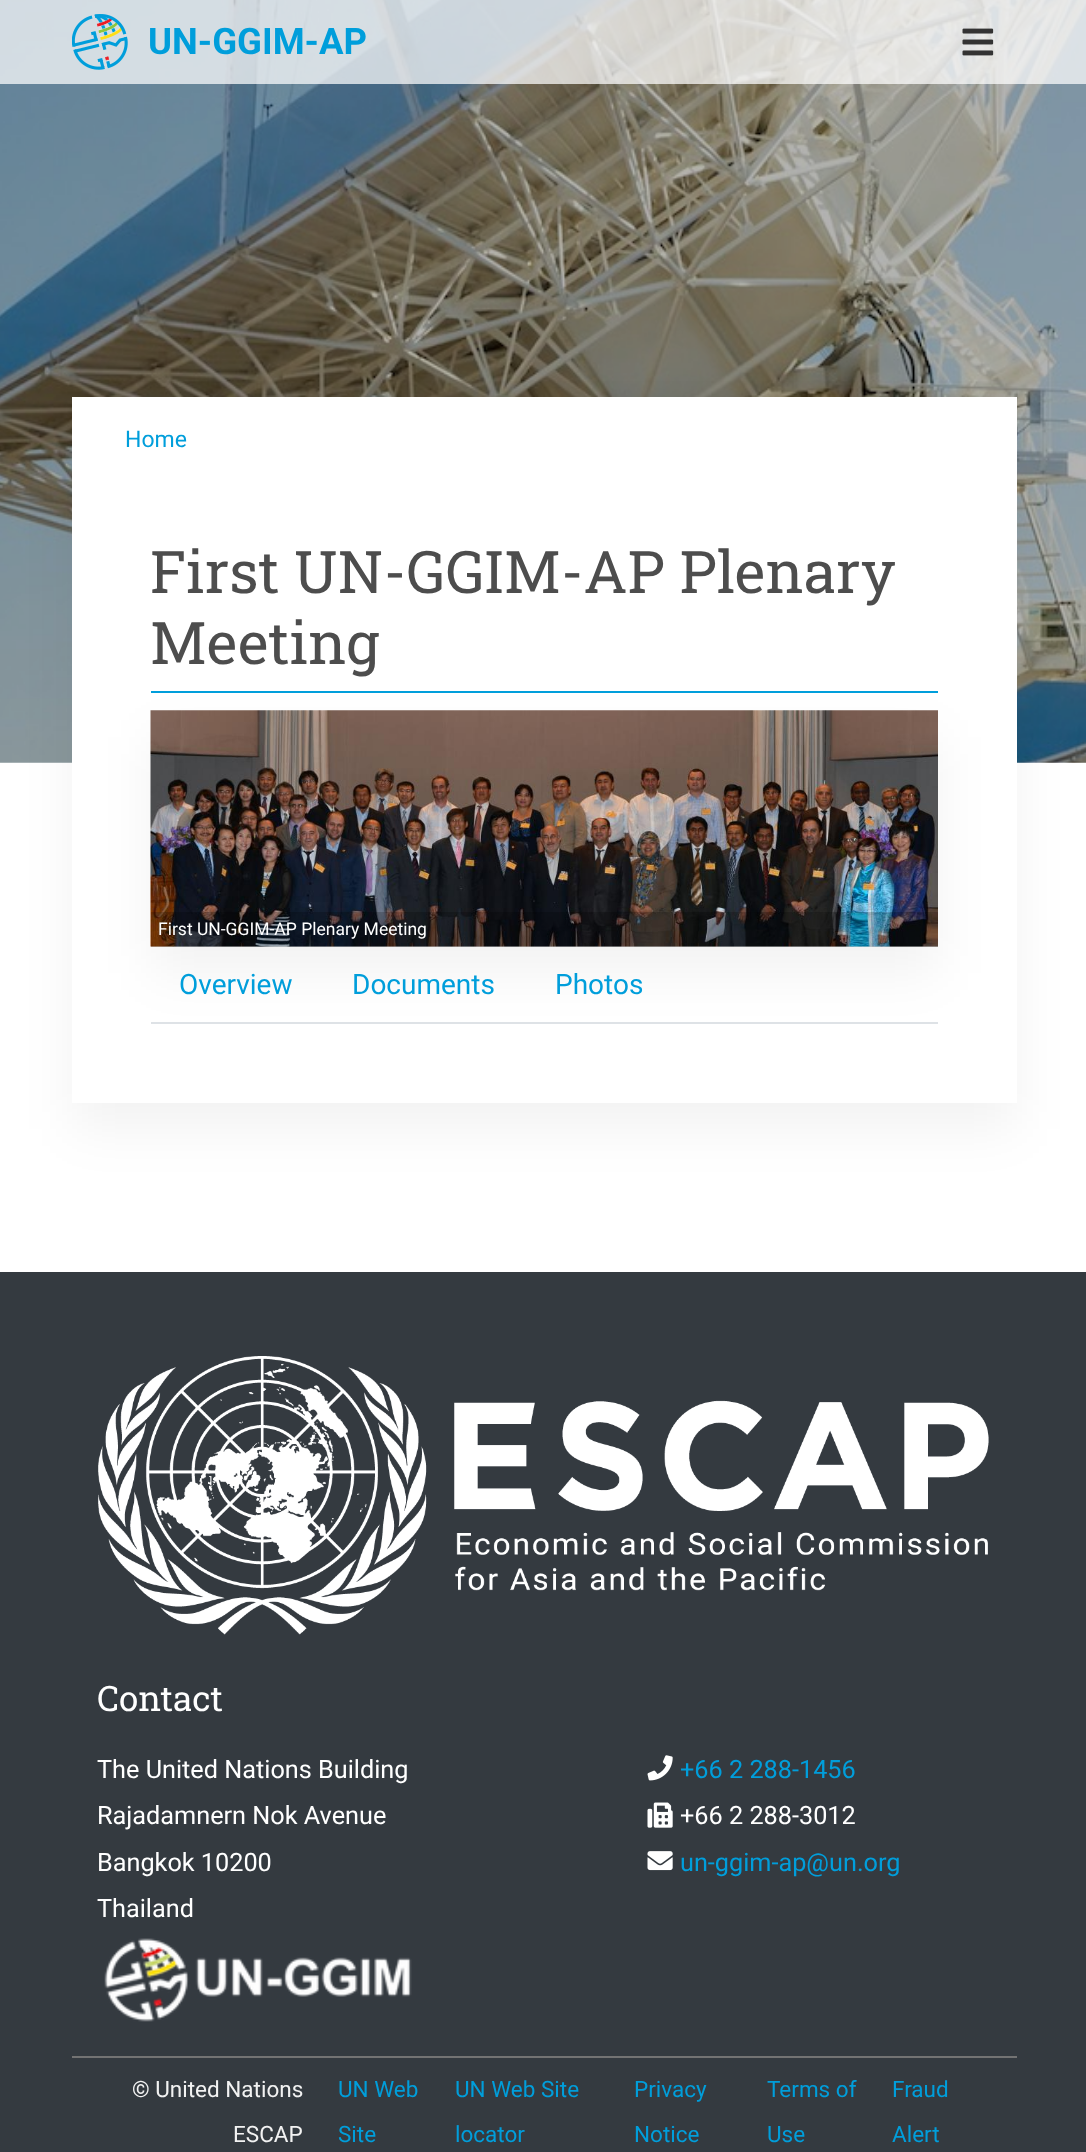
<?xml version="1.0" encoding="UTF-8"?>
<svg xmlns="http://www.w3.org/2000/svg" xmlns:xlink="http://www.w3.org/1999/xlink" width="1086" height="2152">
  <rect width="100%" height="100%" fill="#ffffff" />
  <image x="0" y="0" width="1086" height="763" xlink:href="image1.png" />
  <rect width="1086" height="84" fill="#ffffff" fill-opacity="0.72" />
  <image x="72" y="14" width="56" height="56" xlink:href="image2.png" />
  <image x="962" y="28" width="32" height="28" xlink:href="image3.png" />
  <rect x="72" y="424" width="945" height="705" fill="#000000" fill-opacity="0.05" filter="blur(26px)" />
  <rect x="72" y="397" width="945" height="706" fill="#ffffff" />
  <rect x="151" y="691" width="787" height="2" fill="#009edb" />
  <rect x="151" y="1022" width="787" height="2" fill="#dee2e6" />
  <rect x="151" y="737" width="787" height="236" fill="#000000" fill-opacity="0.05" filter="blur(26px)" />
  <image x="150" y="710" width="788" height="237" xlink:href="image4.png" />
  <rect x="151" y="912" width="787" height="35" fill="#000000" fill-opacity="0.2" />
  <rect y="1272" width="1086" height="880" fill="#343a40" />
  <image x="98" y="1356" width="891" height="279" xlink:href="image5.png" />
  <image x="647" y="1755" width="26" height="26" xlink:href="image6.png" />
  <image x="647" y="1802" width="26" height="26" xlink:href="image7.png" />
  <image x="647" y="1851" width="26" height="20" xlink:href="image8.png" />
  <image x="104" y="1938" width="308" height="84" xlink:href="image9.png" />
  <rect x="72" y="2056" width="945" height="2" fill="#737373" />
  <text x="148" y="54" style="font-family: Roboto; font-size: 36.5px; font-weight: bold; fill: #009edb">UN-GGIM-AP</text>
  <text x="125" y="447" style="font-family: Roboto; font-size: 23px; fill: #009edb">Home</text>
  <text x="150" y="593" style="font-family: Roboto Slab; font-size: 58.75px; fill: #4d4d4d">First UN-GGIM-AP Plenary</text>
  <text x="150" y="664" style="font-family: Roboto Slab; font-size: 58.75px; fill: #4d4d4d">Meeting</text>
  <text x="158" y="935" style="font-family: Roboto; font-size: 17.5px; fill: #ffffff">First UN-GGIM-AP Plenary Meeting</text>
  <text x="179" y="994" style="font-family: Roboto; font-size: 28px; fill: #009edb">Overview</text>
  <text x="352" y="994" style="font-family: Roboto; font-size: 28px; fill: #009edb">Documents</text>
  <text x="555" y="994" style="font-family: Roboto; font-size: 28px; fill: #009edb">Photos</text>
  <text x="97" y="1711" style="font-family: Roboto Slab; font-size: 35px; fill: #ffffff">Contact</text>
  <text x="97" y="1778" style="font-family: Roboto; font-size: 25.25px; fill: #ffffff">The United Nations Building</text>
  <text x="97" y="1824" style="font-family: Roboto; font-size: 25.25px; fill: #ffffff">Rajadamnern Nok Avenue</text>
  <text x="97" y="1871" style="font-family: Roboto; font-size: 25.25px; fill: #ffffff">Bangkok 10200</text>
  <text x="97" y="1917" style="font-family: Roboto; font-size: 25.25px; fill: #ffffff">Thailand</text>
  <text x="680" y="1778" style="font-family: Roboto; font-size: 25.25px; fill: #009edb">+66 2 288-1456</text>
  <text x="680" y="1824" style="font-family: Roboto; font-size: 25.25px; fill: #ffffff">+66 2 288-3012</text>
  <text x="680" y="1871" style="font-family: Roboto; font-size: 25.25px; fill: #009edb">un-ggim-ap@un.org</text>
  <text x="132" y="2097" style="font-family: Roboto; font-size: 22.5px; fill: #f2f2f2">© United Nations</text>
  <text x="233" y="2142" style="font-family: Roboto; font-size: 22.5px; fill: #f2f2f2">ESCAP</text>
  <text x="338" y="2097" style="font-family: Roboto; font-size: 22.5px; fill: #009edb">UN Web</text>
  <text x="338" y="2142" style="font-family: Roboto; font-size: 22.5px; fill: #009edb">Site</text>
  <text x="455" y="2097" style="font-family: Roboto; font-size: 22.5px; fill: #009edb">UN Web Site</text>
  <text x="455" y="2142" style="font-family: Roboto; font-size: 22.5px; fill: #009edb">locator</text>
  <text x="634" y="2097" style="font-family: Roboto; font-size: 22.5px; fill: #009edb">Privacy</text>
  <text x="634" y="2142" style="font-family: Roboto; font-size: 22.5px; fill: #009edb">Notice</text>
  <text x="767" y="2097" style="font-family: Roboto; font-size: 22.5px; fill: #009edb">Terms of</text>
  <text x="767" y="2142" style="font-family: Roboto; font-size: 22.5px; fill: #009edb">Use</text>
  <text x="892" y="2097" style="font-family: Roboto; font-size: 22.5px; fill: #009edb">Fraud</text>
  <text x="892" y="2142" style="font-family: Roboto; font-size: 22.5px; fill: #009edb">Alert</text>
</svg>
